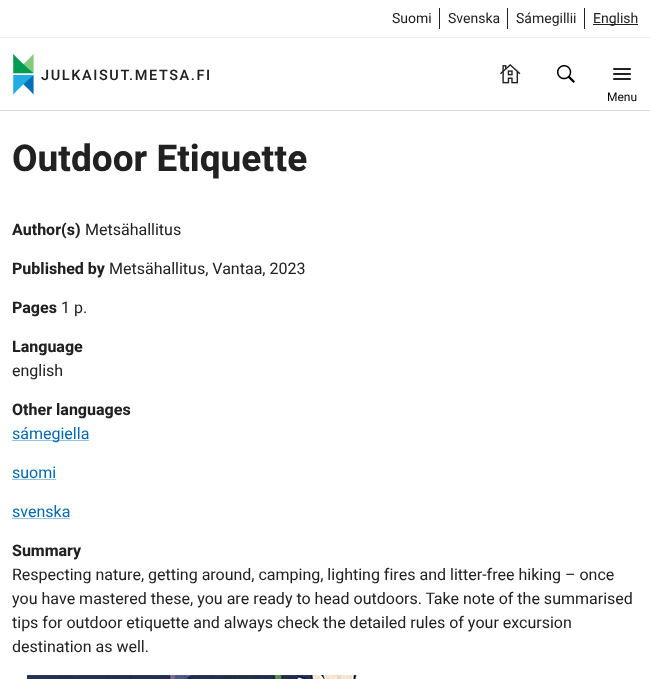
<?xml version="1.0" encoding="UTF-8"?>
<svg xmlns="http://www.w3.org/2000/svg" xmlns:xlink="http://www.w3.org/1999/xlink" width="650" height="679">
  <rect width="100%" height="100%" fill="#ffffff" />
  <rect y="110" width="650" height="1" fill="#d8d8d8" />
  <rect y="37" width="650" height="1" fill="#efece7" />
  <rect x="439" y="8" width="1" height="21" fill="#212121" />
  <rect x="507" y="8" width="1" height="21" fill="#212121" />
  <rect x="584" y="8" width="1" height="21" fill="#212121" />
  <rect x="593" y="24" width="45" height="1" fill="#212121" />
  <image x="13" y="54" width="21" height="41" xlink:href="image1.png" />
  <image x="500" y="64" width="21" height="20" xlink:href="image2.png" />
  <image x="557" y="65" width="18" height="18" xlink:href="image3.png" />
  <image x="613" y="68" width="18" height="12" xlink:href="image4.png" />
  <rect x="12" y="440" width="77" height="1" fill="#99c3e1" />
  <rect x="12" y="479" width="44" height="1" fill="#99c3e1" />
  <rect x="12" y="518" width="58" height="1" fill="#99c3e1" />
  <image x="27" y="675" width="330" height="4" xlink:href="image5.png" />
  <text x="392" y="23" style="font-family: Heebo; font-size: 14px; fill: #212121">Suomi</text>
  <text x="448" y="23" style="font-family: Heebo; font-size: 14px; fill: #212121">Svenska</text>
  <text x="516" y="23" style="font-family: Heebo; font-size: 14px; fill: #212121">Sámegillii</text>
  <text x="593" y="23" style="font-family: Heebo; font-size: 14px; fill: #212121">English</text>
  <text x="41" y="80" style="font-family: Heebo; font-size: 14.5px; font-weight: 500; letter-spacing: 1.6px; fill: #212121">JULKAISUT.METSA.FI</text>
  <text x="607" y="101" style="font-family: Heebo; font-size: 12px; fill: #000000">Menu</text>
  <text x="12" y="171" style="font-family: Heebo; font-size: 37px; font-weight: bold; fill: #212121">Outdoor Etiquette</text>
  <text x="12" y="235" style="font-family: Heebo; font-size: 16px; font-weight: bold; fill: #212121">Author(s)</text>
  <text x="85" y="235" style="font-family: Heebo; font-size: 16px; fill: #212121">Metsähallitus</text>
  <text x="12" y="274" style="font-family: Heebo; font-size: 16px; font-weight: bold; fill: #212121">Published by</text>
  <text x="109" y="274" style="font-family: Heebo; font-size: 16px; fill: #212121">Metsähallitus, Vantaa, 2023</text>
  <text x="12" y="313" style="font-family: Heebo; font-size: 16px; font-weight: bold; fill: #212121">Pages</text>
  <text x="61" y="313" style="font-family: Heebo; font-size: 16px; fill: #212121">1 p.</text>
  <text x="12" y="352" style="font-family: Heebo; font-size: 16px; font-weight: bold; fill: #212121">Language</text>
  <text x="12" y="376" style="font-family: Heebo; font-size: 16px; fill: #212121">english</text>
  <text x="12" y="415" style="font-family: Heebo; font-size: 16px; font-weight: bold; fill: #212121">Other languages</text>
  <text x="12" y="439" style="font-family: Heebo; font-size: 16px; fill: #0069b3">sámegiella</text>
  <text x="12" y="478" style="font-family: Heebo; font-size: 16px; fill: #0069b3">suomi</text>
  <text x="12" y="517" style="font-family: Heebo; font-size: 16px; fill: #0069b3">svenska</text>
  <text x="12" y="556" style="font-family: Heebo; font-size: 16px; font-weight: bold; fill: #212121">Summary</text>
  <text x="12" y="580" style="font-family: Heebo; font-size: 16px; fill: #212121">Respecting nature, getting around, camping, lighting fires and litter-free hiking – once</text>
  <text x="12" y="604" style="font-family: Heebo; font-size: 16px; fill: #212121">you have mastered these, you are ready to head outdoors. Take note of the summarised</text>
  <text x="12" y="628" style="font-family: Heebo; font-size: 16px; fill: #212121">tips for outdoor etiquette and always check the detailed rules of your excursion</text>
  <text x="12" y="652" style="font-family: Heebo; font-size: 16px; fill: #212121">destination as well.</text>
</svg>
